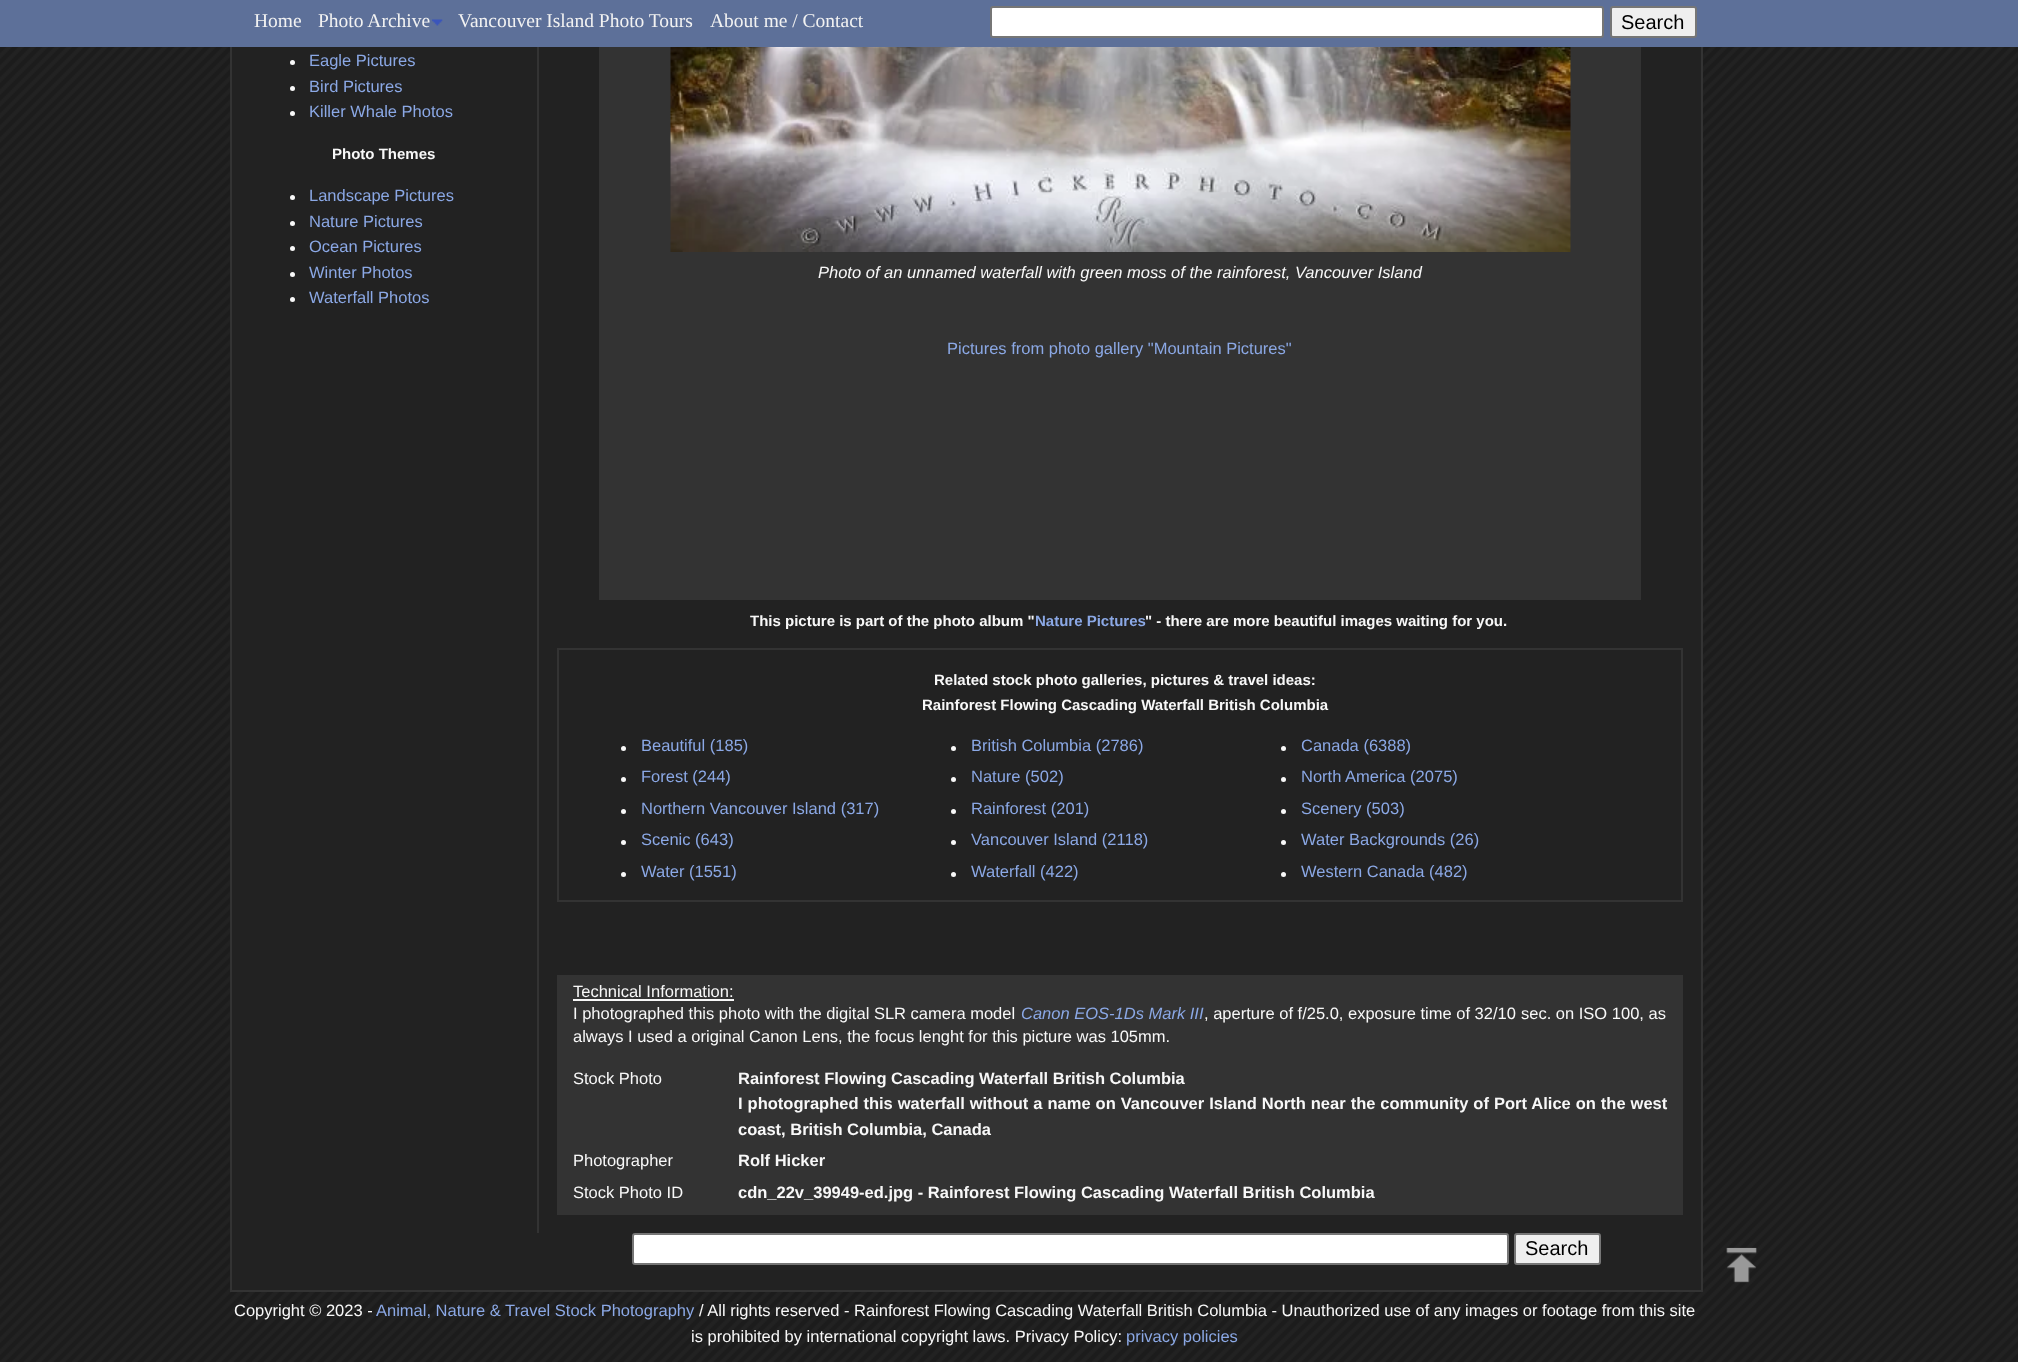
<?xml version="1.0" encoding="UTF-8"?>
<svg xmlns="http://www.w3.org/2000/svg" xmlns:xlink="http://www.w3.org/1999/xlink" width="2018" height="1362">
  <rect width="100%" height="100%" fill="#ffffff" />
  <image x="0" y="47" width="2018" height="1315" xlink:href="image1.png" />
  <rect x="232" y="47" width="1469" height="1243" fill="#222222" />
  <rect x="231" y="-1" width="1471" height="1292" fill="none" stroke="#333333" stroke-width="2" />
  <rect width="2018" height="47" fill="#5d7099" />
  <image x="432" y="19" width="11" height="7" xlink:href="image2.png" />
  <rect x="991" y="7" width="612" height="30" rx="2" fill="#ffffff" stroke="#767676" stroke-width="2" />
  <rect x="1611" y="7" width="85" height="30" rx="2" fill="#efefef" stroke="#767676" stroke-width="2" />
  <circle cx="292.5" cy="62.5" r="2.5" fill="#f8f8f8" />
  <circle cx="292.5" cy="88.5" r="2.5" fill="#f8f8f8" />
  <circle cx="292.5" cy="113.5" r="2.5" fill="#f8f8f8" />
  <circle cx="292.5" cy="197.5" r="2.5" fill="#f8f8f8" />
  <circle cx="292.5" cy="223.5" r="2.5" fill="#f8f8f8" />
  <circle cx="292.5" cy="248.5" r="2.5" fill="#f8f8f8" />
  <circle cx="292.5" cy="274.5" r="2.5" fill="#f8f8f8" />
  <circle cx="292.5" cy="299.5" r="2.5" fill="#f8f8f8" />
  <rect x="537" y="47" width="2" height="1186" fill="#333333" />
  <rect x="599" y="47" width="1042" height="553" fill="#333333" />
  <image x="670" y="47" width="901" height="205" xlink:href="image3.png" />
  <rect x="558" y="649" width="1124" height="252" fill="none" stroke="#333333" stroke-width="2" />
  <circle cx="623.5" cy="748.5" r="2.5" fill="#f8f8f8" />
  <circle cx="953.5" cy="748.5" r="2.5" fill="#f8f8f8" />
  <circle cx="1283.5" cy="748.5" r="2.5" fill="#f8f8f8" />
  <circle cx="623.5" cy="779.5" r="2.5" fill="#f8f8f8" />
  <circle cx="953.5" cy="779.5" r="2.5" fill="#f8f8f8" />
  <circle cx="1283.5" cy="779.5" r="2.5" fill="#f8f8f8" />
  <circle cx="623.5" cy="811.5" r="2.5" fill="#f8f8f8" />
  <circle cx="953.5" cy="811.5" r="2.5" fill="#f8f8f8" />
  <circle cx="1283.5" cy="811.5" r="2.5" fill="#f8f8f8" />
  <circle cx="623.5" cy="842.5" r="2.5" fill="#f8f8f8" />
  <circle cx="953.5" cy="842.5" r="2.5" fill="#f8f8f8" />
  <circle cx="1283.5" cy="842.5" r="2.5" fill="#f8f8f8" />
  <circle cx="623.5" cy="874.5" r="2.5" fill="#f8f8f8" />
  <circle cx="953.5" cy="874.5" r="2.5" fill="#f8f8f8" />
  <circle cx="1283.5" cy="874.5" r="2.5" fill="#f8f8f8" />
  <rect x="557" y="975" width="1126" height="240" fill="#333333" />
  <rect x="573" y="999" width="161" height="2" fill="#f8f8f8" />
  <rect x="633" y="1234" width="875" height="30" rx="2" fill="#ffffff" stroke="#767676" stroke-width="2" />
  <rect x="1515" y="1234" width="85" height="30" rx="2" fill="#efefef" stroke="#767676" stroke-width="2" />
  <image x="1726" y="1247" width="31" height="36" xlink:href="image4.png" />
  <text x="254" y="27" style="font-family: Liberation Serif; font-size: 19.5px; fill: #f2f2f2">Home</text>
  <text x="318" y="27" style="font-family: Liberation Serif; font-size: 19.5px; fill: #f2f2f2">Photo Archive</text>
  <text x="458" y="27" style="font-family: Liberation Serif; font-size: 19.5px; fill: #f2f2f2">Vancouver Island Photo Tours</text>
  <text x="710" y="27" style="font-family: Liberation Serif; font-size: 19.5px; fill: #f2f2f2">About me / Contact</text>
  <text x="1621" y="29" style="font-family: Liberation Sans; font-size: 20px; fill: #000000">Search</text>
  <text x="309" y="66" style="font-family: Liberation Sans; font-size: 16.5px; fill: #8ba8e5">Eagle Pictures</text>
  <text x="309" y="92" style="font-family: Liberation Sans; font-size: 16.5px; fill: #8ba8e5">Bird Pictures</text>
  <text x="309" y="117" style="font-family: Liberation Sans; font-size: 16.5px; fill: #8ba8e5">Killer Whale Photos</text>
  <text x="332" y="159" style="font-family: Liberation Sans; font-size: 15px; font-weight: bold; fill: #f8f8f8">Photo Themes</text>
  <text x="309" y="201" style="font-family: Liberation Sans; font-size: 16.5px; fill: #8ba8e5">Landscape Pictures</text>
  <text x="309" y="227" style="font-family: Liberation Sans; font-size: 16.5px; fill: #8ba8e5">Nature Pictures</text>
  <text x="309" y="252" style="font-family: Liberation Sans; font-size: 16.5px; fill: #8ba8e5">Ocean Pictures</text>
  <text x="309" y="278" style="font-family: Liberation Sans; font-size: 16.5px; fill: #8ba8e5">Winter Photos</text>
  <text x="309" y="303" style="font-family: Liberation Sans; font-size: 16.5px; fill: #8ba8e5">Waterfall Photos</text>
  <text x="818" y="278" style="font-family: Liberation Sans; font-size: 16.5px; font-style: italic; fill: #f8f8f8">Photo of an unnamed waterfall with green moss of the rainforest, Vancouver Island</text>
  <text x="947" y="354" style="font-family: Liberation Sans; font-size: 16.5px; fill: #8ba8e5">Pictures from photo gallery "Mountain Pictures"</text>
  <text x="750" y="626" style="font-family: Liberation Sans; font-size: 15px; font-weight: bold; fill: #f8f8f8">This picture is part of the photo album "</text>
  <text x="1035" y="626" style="font-family: Liberation Sans; font-size: 15px; font-weight: bold; fill: #8ba8e5">Nature Pictures</text>
  <text x="1145" y="626" style="font-family: Liberation Sans; font-size: 15px; font-weight: bold; fill: #f8f8f8">" - there are more beautiful images waiting for you.</text>
  <text x="934" y="685" style="font-family: Liberation Sans; font-size: 15px; font-weight: bold; fill: #f8f8f8">Related stock photo galleries, pictures &amp; travel ideas:</text>
  <text x="922" y="710" style="font-family: Liberation Sans; font-size: 15px; font-weight: bold; fill: #f8f8f8">Rainforest Flowing Cascading Waterfall British Columbia</text>
  <text x="641" y="751" style="font-family: Liberation Sans; font-size: 16.5px; fill: #8ba8e5">Beautiful (185)</text>
  <text x="971" y="751" style="font-family: Liberation Sans; font-size: 16.5px; fill: #8ba8e5">British Columbia (2786)</text>
  <text x="1301" y="751" style="font-family: Liberation Sans; font-size: 16.5px; fill: #8ba8e5">Canada (6388)</text>
  <text x="641" y="782" style="font-family: Liberation Sans; font-size: 16.5px; fill: #8ba8e5">Forest (244)</text>
  <text x="971" y="782" style="font-family: Liberation Sans; font-size: 16.5px; fill: #8ba8e5">Nature (502)</text>
  <text x="1301" y="782" style="font-family: Liberation Sans; font-size: 16.5px; fill: #8ba8e5">North America (2075)</text>
  <text x="641" y="814" style="font-family: Liberation Sans; font-size: 16.5px; fill: #8ba8e5">Northern Vancouver Island (317)</text>
  <text x="971" y="814" style="font-family: Liberation Sans; font-size: 16.5px; fill: #8ba8e5">Rainforest (201)</text>
  <text x="1301" y="814" style="font-family: Liberation Sans; font-size: 16.5px; fill: #8ba8e5">Scenery (503)</text>
  <text x="641" y="845" style="font-family: Liberation Sans; font-size: 16.5px; fill: #8ba8e5">Scenic (643)</text>
  <text x="971" y="845" style="font-family: Liberation Sans; font-size: 16.5px; fill: #8ba8e5">Vancouver Island (2118)</text>
  <text x="1301" y="845" style="font-family: Liberation Sans; font-size: 16.5px; fill: #8ba8e5">Water Backgrounds (26)</text>
  <text x="641" y="877" style="font-family: Liberation Sans; font-size: 16.5px; fill: #8ba8e5">Water (1551)</text>
  <text x="971" y="877" style="font-family: Liberation Sans; font-size: 16.5px; fill: #8ba8e5">Waterfall (422)</text>
  <text x="1301" y="877" style="font-family: Liberation Sans; font-size: 16.5px; fill: #8ba8e5">Western Canada (482)</text>
  <text x="573" y="997" style="font-family: Liberation Sans; font-size: 16.5px; fill: #f8f8f8">Technical Information:</text>
  <text x="573" y="1019" style="font-family: Liberation Sans; font-size: 16.5px; fill: #f8f8f8">I photographed this photo with the digital SLR camera model</text>
  <text x="1021" y="1019" style="font-family: Liberation Sans; font-size: 16.5px; font-style: italic; fill: #8ba8e5">Canon EOS-1Ds Mark III</text>
  <text x="1204" y="1019" style="font-family: Liberation Sans; font-size: 16.5px; fill: #f8f8f8">, aperture of f/25.0, exposure time of 32/10</text>
  <text x="1521" y="1019" style="font-family: Liberation Sans; font-size: 16.5px; fill: #f8f8f8">sec. on ISO 100, as</text>
  <text x="573" y="1042" style="font-family: Liberation Sans; font-size: 16.5px; fill: #f8f8f8">always I used a original Canon Lens, the focus lenght for this picture was 105mm.</text>
  <text x="573" y="1084" style="font-family: Liberation Sans; font-size: 16.5px; fill: #f8f8f8">Stock Photo</text>
  <text x="738" y="1084" style="font-family: Liberation Sans; font-size: 16.5px; font-weight: bold; fill: #f8f8f8">Rainforest Flowing Cascading Waterfall British Columbia</text>
  <text x="738" y="1109" word-spacing="0.4" style="font-family: Liberation Sans; font-size: 16.5px; font-weight: bold; fill: #f8f8f8">I photographed this waterfall without a name on Vancouver Island North near the community of Port Alice on the west</text>
  <text x="738" y="1135" style="font-family: Liberation Sans; font-size: 16.5px; font-weight: bold; fill: #f8f8f8">coast, British Columbia, Canada</text>
  <text x="573" y="1166" style="font-family: Liberation Sans; font-size: 16.5px; fill: #f8f8f8">Photographer</text>
  <text x="738" y="1166" style="font-family: Liberation Sans; font-size: 16.5px; font-weight: bold; fill: #f8f8f8">Rolf Hicker</text>
  <text x="573" y="1198" style="font-family: Liberation Sans; font-size: 16.5px; fill: #f8f8f8">Stock Photo ID</text>
  <text x="738" y="1198" style="font-family: Liberation Sans; font-size: 16.5px; font-weight: bold; fill: #f8f8f8">cdn_22v_39949-ed.jpg - Rainforest Flowing Cascading Waterfall British Columbia</text>
  <text x="1525" y="1255" style="font-family: Liberation Sans; font-size: 20px; fill: #000000">Search</text>
  <text x="234" y="1316" style="font-family: Liberation Sans; font-size: 16.5px; fill: #f8f8f8">Copyright © 2023 -</text>
  <text x="376" y="1316" style="font-family: Liberation Sans; font-size: 16.5px; fill: #8ba8e5">Animal, Nature &amp; Travel Stock Photography</text>
  <text x="699" y="1316" style="font-family: Liberation Sans; font-size: 16.5px; fill: #f8f8f8">/ All rights reserved - Rainforest Flowing Cascading Waterfall British Columbia - Unauthorized use of any images or footage from this site</text>
  <text x="691" y="1342" style="font-family: Liberation Sans; font-size: 16.5px; fill: #f8f8f8">is prohibited by international copyright laws. Privacy Policy:</text>
  <text x="1126" y="1342" style="font-family: Liberation Sans; font-size: 16.5px; fill: #8ba8e5">privacy policies</text>
</svg>
